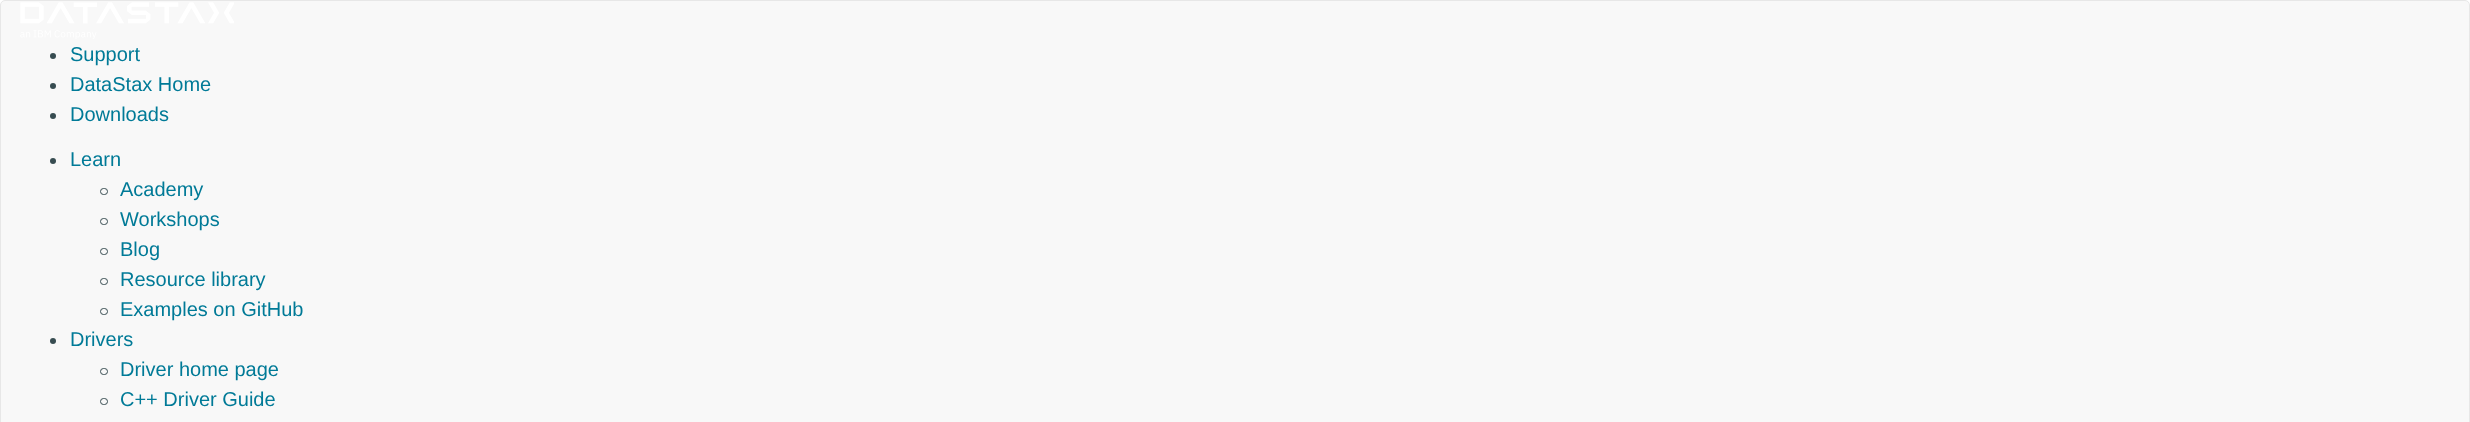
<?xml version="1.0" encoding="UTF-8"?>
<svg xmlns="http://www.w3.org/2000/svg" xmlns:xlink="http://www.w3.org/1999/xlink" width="2470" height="422">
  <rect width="100%" height="100%" fill="#ffffff" />
  <rect x="0.5" y="0.5" width="2469" height="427" rx="4.5" fill="#f8f8f8" stroke="#e7e7e7" />
  <image x="20" y="2" width="214" height="37" xlink:href="image1.png" />
  <circle cx="53" cy="56" r="3" fill="#374c51" />
  <circle cx="53" cy="86" r="3" fill="#374c51" />
  <circle cx="53" cy="116" r="3" fill="#374c51" />
  <circle cx="53" cy="161" r="3" fill="#374c51" />
  <rect x="100.5" y="188.5" width="7" height="6" rx="3" fill="none" stroke="#374c51" />
  <rect x="100.5" y="218.5" width="7" height="6" rx="3" fill="none" stroke="#374c51" />
  <rect x="100.5" y="248.5" width="7" height="6" rx="3" fill="none" stroke="#374c51" />
  <rect x="100.5" y="278.5" width="7" height="6" rx="3" fill="none" stroke="#374c51" />
  <rect x="100.5" y="308.5" width="7" height="6" rx="3" fill="none" stroke="#374c51" />
  <circle cx="53" cy="341" r="3" fill="#374c51" />
  <rect x="100.5" y="368.5" width="7" height="6" rx="3" fill="none" stroke="#374c51" />
  <rect x="100.5" y="398.5" width="7" height="6" rx="3" fill="none" stroke="#374c51" />
  <text x="70" y="61" style="font-family: Liberation Sans; font-size: 20px; fill: #007a97">Support</text>
  <text x="70" y="91" style="font-family: Liberation Sans; font-size: 20px; fill: #007a97">DataStax Home</text>
  <text x="70" y="121" style="font-family: Liberation Sans; font-size: 20px; fill: #007a97">Downloads</text>
  <text x="70" y="166" style="font-family: Liberation Sans; font-size: 20px; fill: #007a97">Learn</text>
  <text x="120" y="196" style="font-family: Liberation Sans; font-size: 20px; fill: #007a97">Academy</text>
  <text x="120" y="226" style="font-family: Liberation Sans; font-size: 20px; fill: #007a97">Workshops</text>
  <text x="120" y="256" style="font-family: Liberation Sans; font-size: 20px; fill: #007a97">Blog</text>
  <text x="120" y="286" style="font-family: Liberation Sans; font-size: 20px; fill: #007a97">Resource library</text>
  <text x="120" y="316" style="font-family: Liberation Sans; font-size: 20px; fill: #007a97">Examples on GitHub</text>
  <text x="70" y="346" style="font-family: Liberation Sans; font-size: 20px; fill: #007a97">Drivers</text>
  <text x="120" y="376" style="font-family: Liberation Sans; font-size: 20px; fill: #007a97">Driver home page</text>
  <text x="120" y="406" style="font-family: Liberation Sans; font-size: 20px; fill: #007a97">C++ Driver Guide</text>
</svg>
